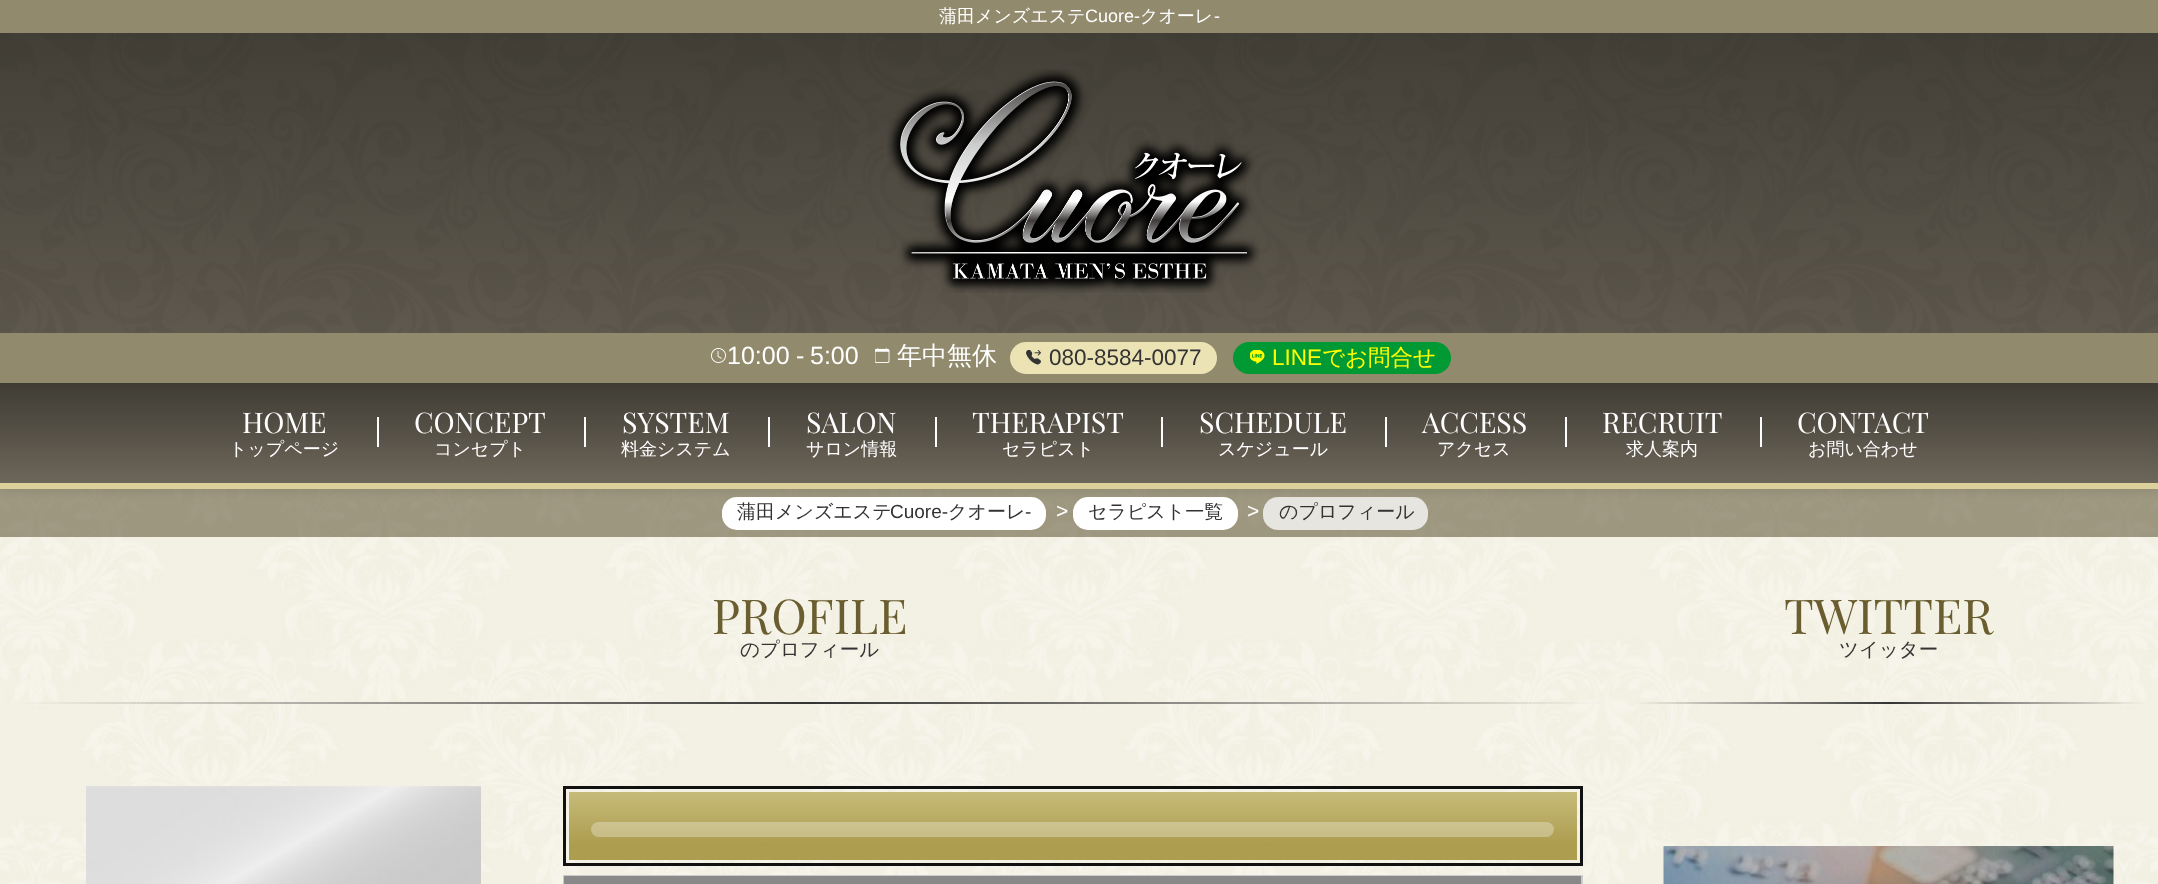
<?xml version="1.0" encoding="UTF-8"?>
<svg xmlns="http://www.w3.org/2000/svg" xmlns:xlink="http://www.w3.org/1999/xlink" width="2158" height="884">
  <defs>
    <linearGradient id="g1" gradientUnits="userSpaceOnUse" x1="1079" y1="382" x2="1079" y2="483"><stop offset="0" stop-color="#3f3c34" /><stop offset="1" stop-color="#6d665a" /></linearGradient>
    <linearGradient id="g2" gradientUnits="userSpaceOnUse" x1="1073" y1="792" x2="1073" y2="860"><stop offset="0" stop-color="#c6bb79" /><stop offset="0.77" stop-color="#ad9d4f" /></linearGradient>
  </defs>
  <rect width="100%" height="100%" fill="#ffffff" />
  <image x="0" y="489" width="2158" height="395" xlink:href="image7.png" />
  <rect y="489" width="2158" height="48" fill="#493d1c" fill-opacity="0.5" />
  <rect x="722" y="497" width="324" height="33" rx="15" fill="#ffffff" />
  <rect x="1073" y="497" width="165" height="33" rx="15" fill="#ffffff" />
  <rect x="1263" y="497" width="165" height="33" rx="15" fill="#ffffff" fill-opacity="0.75" />
  <rect y="2" width="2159" height="489" fill="#000000" fill-opacity="0.1" filter="blur(4px)" />
  <image x="0" y="33" width="2158" height="300" xlink:href="image1.png" />
  <rect width="2158" height="33" fill="#918a6c" />
  <image x="887" y="69" width="373" height="224" xlink:href="image2.png" />
  <rect y="333" width="2158" height="50" fill="#918a6c" />
  <image x="711" y="348" width="15" height="15" xlink:href="image3.png" />
  <image x="875" y="348" width="15" height="15" xlink:href="image4.png" />
  <rect x="1010" y="342" width="207" height="32" rx="16" fill="#ece3b4" />
  <image x="1026" y="350" width="15" height="15" xlink:href="image5.png" />
  <rect x="1233" y="342" width="218" height="32" rx="16" fill="#009933" />
  <image x="1250" y="350" width="15" height="14" xlink:href="image6.png" />
  <rect y="383" width="2158" height="100" fill="url(#g1)" />
  <rect x="377" y="417" width="2" height="30" fill="#ffffff" />
  <rect x="584" y="417" width="2" height="30" fill="#ffffff" />
  <rect x="768" y="417" width="2" height="30" fill="#ffffff" />
  <rect x="935" y="417" width="2" height="30" fill="#ffffff" />
  <rect x="1161" y="417" width="2" height="30" fill="#ffffff" />
  <rect x="1385" y="417" width="2" height="30" fill="#ffffff" />
  <rect x="1565" y="417" width="2" height="30" fill="#ffffff" />
  <rect x="1760" y="417" width="2" height="30" fill="#ffffff" />
  <rect y="483" width="2158" height="6" fill="#dbcf9a" />
  <image x="86" y="786" width="395" height="98" xlink:href="image8.png" />
  <rect x="569" y="792" width="1008" height="68" fill="url(#g2)" />
  <rect x="591" y="822" width="963" height="15" rx="7.5" fill="#ffffff" fill-opacity="0.3" />
  <rect x="564.5" y="787.5" width="1017" height="77" fill="none" stroke="#111111" stroke-width="3" />
  <rect x="564" y="876" width="1018" height="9" fill="none" stroke="#cccccc" stroke-width="2" />
  <rect x="564" y="876" width="1017" height="8" fill="#898989" />
  <image x="1663" y="846" width="451" height="38" xlink:href="image9.png" />
  <text x="939" y="22" style="font-family: WenQuanYi Zen Hei; font-size: 18px; font-weight: 500; fill: #ffffff">蒲田メンズエステ</text>
  <text x="1085" y="22" style="font-family: Liberation Sans; font-size: 18px; fill: #ffffff">Cuore-</text>
  <text x="1140" y="22" style="font-family: WenQuanYi Zen Hei; font-size: 18px; font-weight: 500; fill: #ffffff">クオーレ</text>
  <text x="1214" y="22" style="font-family: Liberation Sans; font-size: 18px; fill: #ffffff">-</text>
  <text x="727" y="364" style="font-family: Liberation Sans; font-size: 25px; fill: #ffffff">10:00</text>
  <text x="796" y="364" style="font-family: Liberation Sans; font-size: 25px; fill: #ffffff">-</text>
  <text x="810" y="364" style="font-family: Liberation Sans; font-size: 25px; fill: #ffffff">5:00</text>
  <text x="897" y="364" style="font-family: WenQuanYi Zen Hei; font-size: 25px; font-weight: 500; fill: #ffffff">年中無休</text>
  <text x="1049" y="365" style="font-family: Liberation Sans; font-size: 22.5px; fill: #333333">080-8584-0077</text>
  <text x="1272" y="365" style="font-family: Liberation Sans; font-size: 22.5px; fill: #ffff00">LINE</text>
  <text x="1322" y="365" style="font-family: WenQuanYi Zen Hei; font-size: 22.5px; font-weight: 500; fill: #ffff00">でお問合せ</text>
  <text x="242" y="433" style="font-family: Playfair Display; font-size: 28.5px; fill: #ffffff">HOME</text>
  <text x="229" y="455" style="font-family: WenQuanYi Zen Hei; font-size: 18px; font-weight: 500; fill: #ffffff">トップページ</text>
  <text x="414" y="433" style="font-family: Playfair Display; font-size: 28.5px; fill: #ffffff">CONCEPT</text>
  <text x="434" y="455" style="font-family: WenQuanYi Zen Hei; font-size: 18px; font-weight: 500; fill: #ffffff">コンセプト</text>
  <text x="622" y="433" style="font-family: Playfair Display; font-size: 28.5px; fill: #ffffff">SYSTEM</text>
  <text x="621" y="455" style="font-family: WenQuanYi Zen Hei; font-size: 18px; font-weight: 500; fill: #ffffff">料金システム</text>
  <text x="806" y="433" style="font-family: Playfair Display; font-size: 28.5px; fill: #ffffff">SALON</text>
  <text x="806" y="455" style="font-family: WenQuanYi Zen Hei; font-size: 18px; font-weight: 500; fill: #ffffff">サロン情報</text>
  <text x="972" y="433" style="font-family: Playfair Display; font-size: 28.5px; fill: #ffffff">THERAPIST</text>
  <text x="1002" y="455" style="font-family: WenQuanYi Zen Hei; font-size: 18px; font-weight: 500; fill: #ffffff">セラピスト</text>
  <text x="1199" y="433" style="font-family: Playfair Display; font-size: 28.5px; fill: #ffffff">SCHEDULE</text>
  <text x="1218" y="455" style="font-family: WenQuanYi Zen Hei; font-size: 18px; font-weight: 500; fill: #ffffff">スケジュール</text>
  <text x="1422" y="433" style="font-family: Playfair Display; font-size: 28.5px; fill: #ffffff">ACCESS</text>
  <text x="1437" y="455" style="font-family: WenQuanYi Zen Hei; font-size: 18px; font-weight: 500; fill: #ffffff">アクセス</text>
  <text x="1602" y="433" style="font-family: Playfair Display; font-size: 28.5px; fill: #ffffff">RECRUIT</text>
  <text x="1626" y="455" style="font-family: WenQuanYi Zen Hei; font-size: 18px; font-weight: 500; fill: #ffffff">求人案内</text>
  <text x="1797" y="433" style="font-family: Playfair Display; font-size: 28.5px; fill: #ffffff">CONTACT</text>
  <text x="1808" y="455" style="font-family: WenQuanYi Zen Hei; font-size: 18px; font-weight: 500; fill: #ffffff">お問い合わせ</text>
  <text x="737" y="518" style="font-family: WenQuanYi Zen Hei; font-size: 19px; font-weight: 500; fill: #333333">蒲田メンズエステ</text>
  <text x="890" y="518" style="font-family: Liberation Sans; font-size: 19px; fill: #333333">Cuore-</text>
  <text x="948" y="518" style="font-family: WenQuanYi Zen Hei; font-size: 19px; font-weight: 500; fill: #333333">クオーレ</text>
  <text x="1025" y="518" style="font-family: Liberation Sans; font-size: 19px; fill: #333333">-</text>
  <text x="1056" y="518" style="font-family: Liberation Sans; font-size: 21px; fill: #ffffff">&gt;</text>
  <text x="1088" y="518" style="font-family: WenQuanYi Zen Hei; font-size: 19px; font-weight: 500; fill: #333333">セラピスト一覧</text>
  <text x="1247" y="518" style="font-family: Liberation Sans; font-size: 21px; fill: #ffffff">&gt;</text>
  <text x="1279" y="518" style="font-family: WenQuanYi Zen Hei; font-size: 19px; font-weight: 500; fill: #333333">のプロフィール</text>
  <text x="712" y="634" style="font-family: Playfair Display; font-size: 48px; fill: #6a5d30">PROFILE</text>
  <text x="740" y="656" style="font-family: WenQuanYi Zen Hei; font-size: 19.5px; font-weight: 500; fill: #333333">のプロフィール</text>
  <text x="1784" y="634" style="font-family: Playfair Display; font-size: 48px; fill: #6a5d30">TWITTER</text>
  <text x="1839" y="656" style="font-family: WenQuanYi Zen Hei; font-size: 19.5px; font-weight: 500; fill: #333333">ツイッター</text>
</svg>
